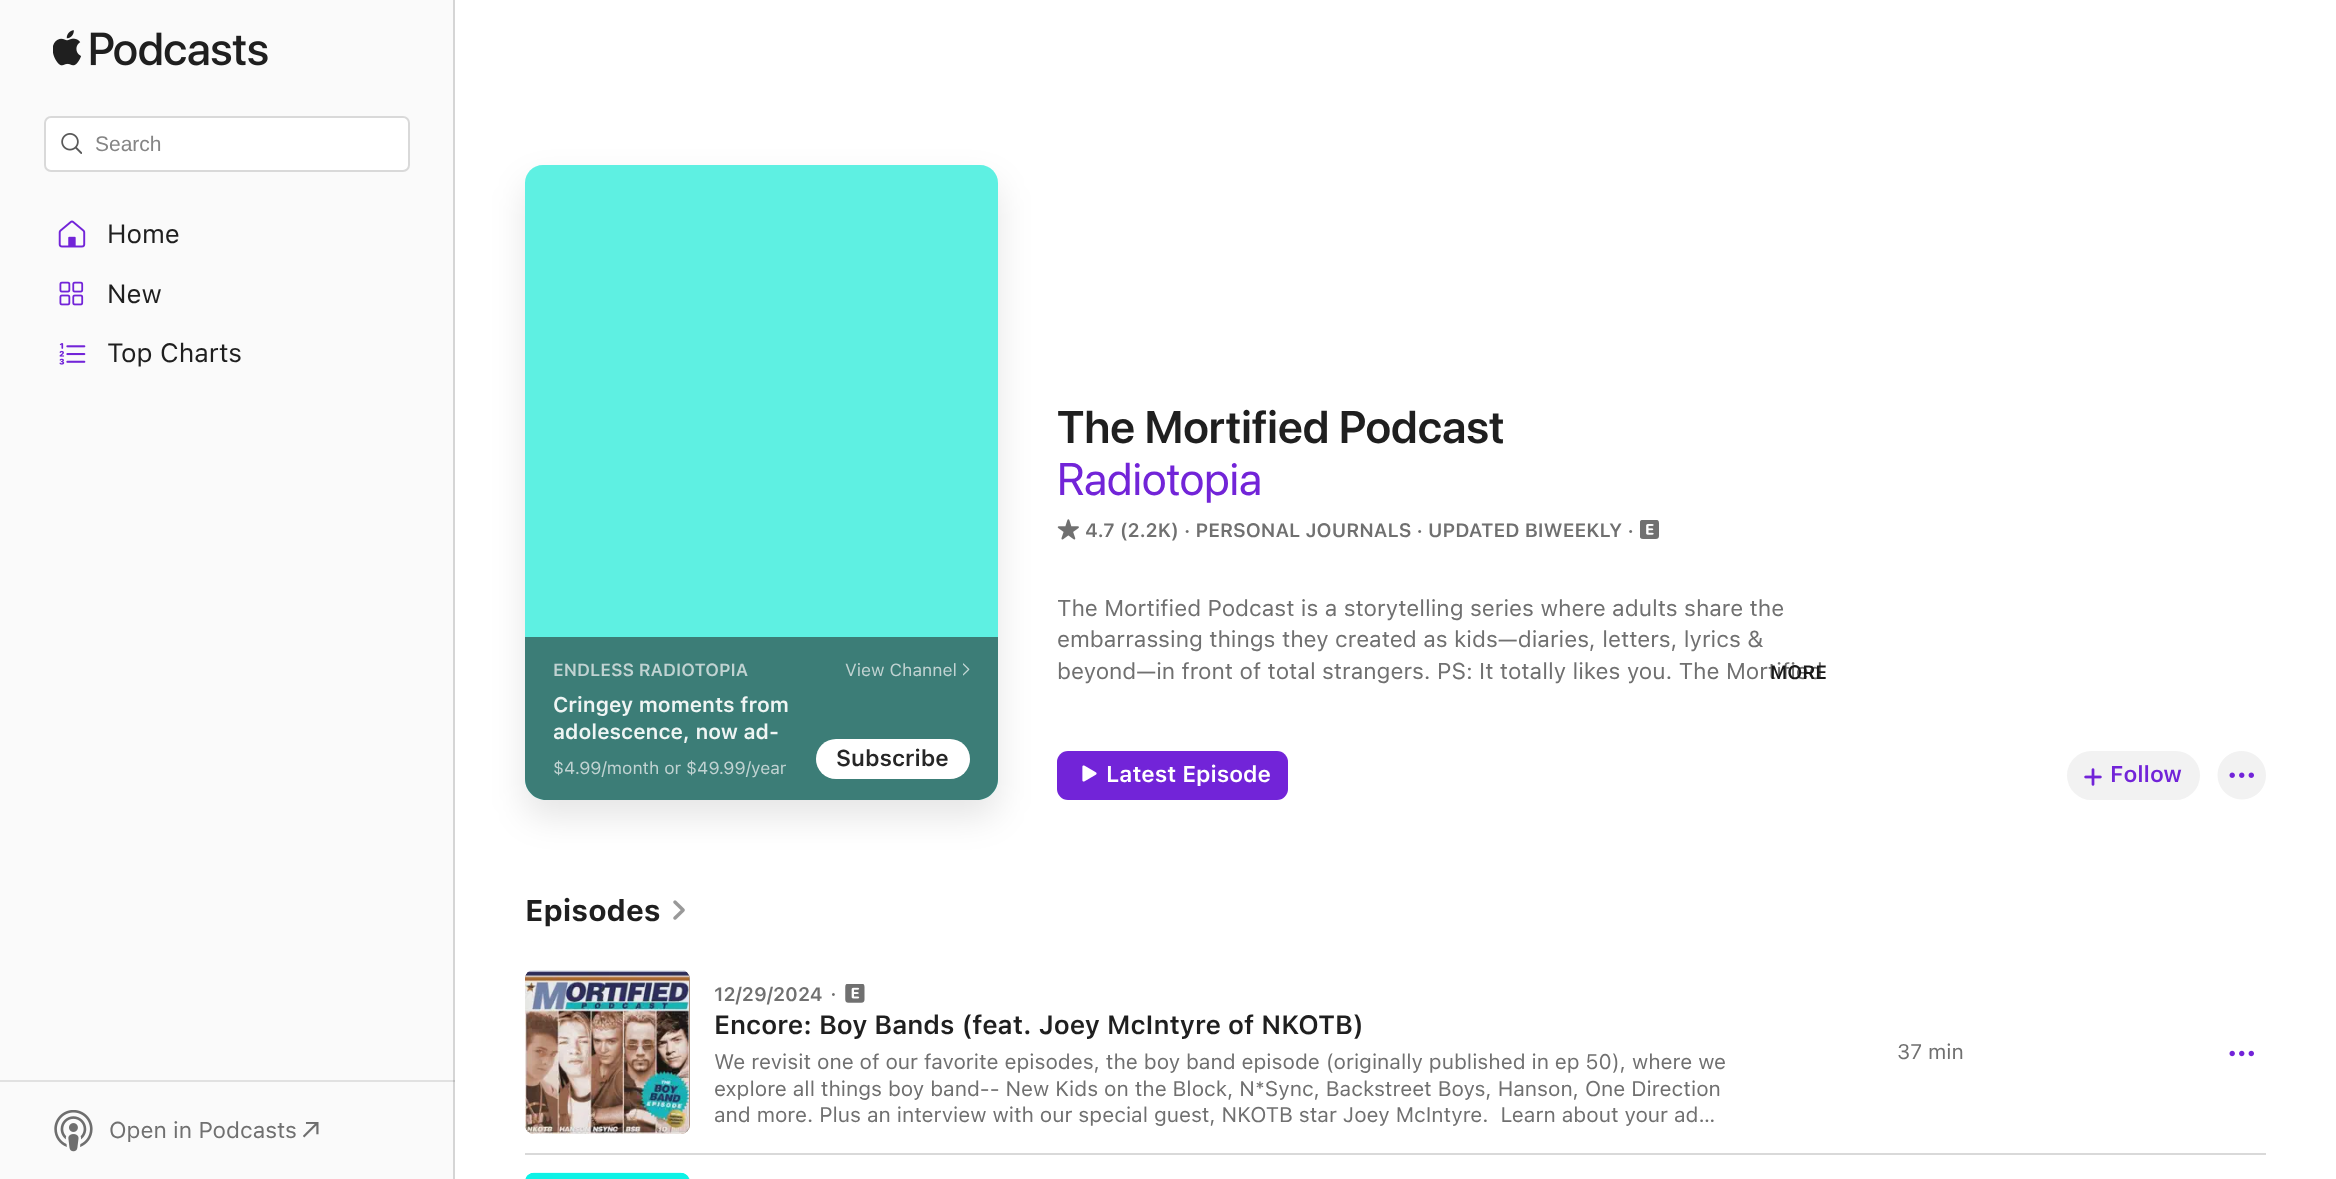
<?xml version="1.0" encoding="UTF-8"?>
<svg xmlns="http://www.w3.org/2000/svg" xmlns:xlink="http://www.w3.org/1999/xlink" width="2336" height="1179">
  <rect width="100%" height="100%" fill="#ffffff" />
  <rect width="453" height="1179" fill="#fafafa" />
  <rect y="1080" width="455" height="2" fill="#e1e1e1" />
  <rect x="453" width="2" height="1179" fill="#d5d5d5" />
  <rect x="453" y="1080" width="2" height="2" fill="#c0c0c0" />
  <image x="53" y="30" width="215" height="36" xlink:href="image1.png" />
  <rect x="45" y="117" width="364" height="54" rx="6" fill="#ffffff" stroke="#d9d9d9" stroke-width="2" />
  <image x="61" y="133" width="21" height="21" xlink:href="image2.png" />
  <image x="58" y="220" width="28" height="28" xlink:href="image3.png" />
  <image x="59" y="281" width="25" height="25" xlink:href="image4.png" />
  <image x="59" y="343" width="27" height="22" xlink:href="image5.png" />
  <image x="54" y="1110" width="39" height="42" xlink:href="image6.png" />
  <image x="303" y="1122" width="16" height="16" xlink:href="image7.png" />
  <image x="1057" y="519" width="22" height="21" xlink:href="image8.png" />
  <image x="1640" y="520" width="19" height="19" xlink:href="image9.png" />
  <rect x="525" y="182" width="473" height="635" rx="18" fill="#000000" fill-opacity="0.1" filter="blur(17.5px)" />
  <path d="M 543 165 h 437 c 10 0 18 8 18 18 v 454 h -473 v -454 c 0 -10 8 -18 18 -18 z" fill="#5bfdee" />
  <path d="M 543 165 h 437 c 10 0 18 8 18 18 v 454 h -473 v -454 c 0 -10 8 -18 18 -18 z" fill="#808080" fill-opacity="0.1" />
  <path d="M 525 637 h 473 v 142 c 0 11.5 -9.5 21 -21 21 h -431 c -11.5 0 -21 -9.5 -21 -21 z" fill="#5bfdee" />
  <path d="M 525 637 h 473 v 142 c 0 11.5 -9.5 21 -21 21 h -431 c -11.5 0 -21 -9.5 -21 -21 z" fill="#282828" fill-opacity="0.6" />
  <image x="963" y="663" width="7" height="13" xlink:href="image10.png" />
  <rect x="816" y="739" width="154" height="40" rx="20" fill="#ffffff" />
  <rect x="1057" y="751" width="231" height="49" rx="11" fill="#7224d8" />
  <image x="1082" y="765" width="15" height="17" xlink:href="image11.png" />
  <rect x="2067" y="751" width="133" height="49" rx="24.5" fill="#f2f2f2" />
  <image x="2084" y="768" width="18" height="18" xlink:href="image12.png" />
  <image x="2217" y="751" width="49" height="49" xlink:href="image13.png" />
  <image x="673" y="900" width="12" height="20" xlink:href="image14.png" />
  <rect x="525" y="1153" width="1741" height="2" fill="#d9d9d9" />
  <rect x="525" y="970" width="165" height="164" rx="9" fill="#a88774" />
  <image x="525" y="970" width="165" height="164" xlink:href="image15.png" />
  <path d="M 534 970 h 147 c 5 0 9 4 9 9 v 146 c 0 5 -4 9 -9 9 h -147 c -5 0 -9 -4 -9 -9 v -146 c 0 -5 4 -9 9 -9 z" fill="#808080" fill-opacity="0.1" />
  <image x="845" y="984" width="20" height="19" xlink:href="image16.png" />
  <image x="2229" y="1050" width="25" height="7" xlink:href="image17.png" />
  <path d="M 534 1173 h 147 c 5 0 9 4 9 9 v -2 h -165 v 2 c 0 -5 4 -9 9 -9 z" fill="#5bfdf0" />
  <image x="525" y="1172" width="164" height="7" xlink:href="image18.png" />
  <path d="M 534 1173 h 147 c 5 0 9 4 9 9 v 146 c 0 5 -4 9 -9 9 h -147 c -5 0 -9 -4 -9 -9 v -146 c 0 -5 4 -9 9 -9 z" fill="#808080" fill-opacity="0.1" />
  <text x="95" y="151" style="font-family: Liberation Sans; font-size: 21px; fill: #858585">Search</text>
  <text x="107" y="243" style="font-family: 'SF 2'; font-size: 26.25px; fill: #1f1f1f">Home</text>
  <text x="107" y="303" style="font-family: 'SF 2'; font-size: 26.25px; fill: #1f1f1f">New</text>
  <text x="107" y="362" style="font-family: 'SF 2'; font-size: 26.25px; fill: #1f1f1f">Top Charts</text>
  <text x="109" y="1138" style="font-family: 'SF 2'; font-size: 22.75px; fill: #707070">Open in Podcasts</text>
  <text x="1057" y="443" style="font-family: 'SF 2'; font-size: 45.5px; font-weight: 600; fill: #1f1f1f">The Mortified Podcast</text>
  <text x="1057" y="495" style="font-family: SF; font-size: 45.5px; fill: #7224d8">Radiotopia</text>
  <text x="1085" y="537" style="font-family: SF; font-size: 19.25px; font-weight: 600; fill: #707070">4.7 (2.2K) · PERSONAL JOURNALS · UPDATED BIWEEKLY ·</text>
  <text x="1057" y="616" style="font-family: 'SF 2'; font-size: 22.75px; fill: #707070">The Mortified Podcast is a storytelling series where adults share the</text>
  <text x="1057" y="647" style="font-family: 'SF 2'; font-size: 22.75px; fill: #707070">embarrassing things they created as kids—diaries, letters, lyrics &amp;</text>
  <text x="1057" y="679" style="font-family: 'SF 2'; font-size: 22.75px; fill: #707070">beyond—in front of total strangers. PS: It totally likes you. The Mortified</text>
  <text x="1770" y="679" style="font-family: SF; font-size: 19.25px; font-weight: 600; fill: #191919">MORE</text>
  <text x="553" y="676" style="font-family: SF; font-size: 17.5px; font-weight: 600; fill: #c1d3d2">ENDLESS RADIOTOPIA</text>
  <text x="845" y="676" style="font-family: 'SF 2'; font-size: 17.5px; fill: #c1d3d2">View Channel</text>
  <text x="553" y="712" style="font-family: SF; font-size: 21px; font-weight: 600; fill: #eff5f4">Cringey moments from</text>
  <text x="553" y="739" style="font-family: SF; font-size: 21px; font-weight: 600; fill: #eff5f4">adolescence, now ad-</text>
  <text x="836" y="766" style="font-family: SF; font-size: 22.75px; font-weight: 600; fill: #262626">Subscribe</text>
  <text x="553" y="774" style="font-family: 'SF 2'; font-size: 17.5px; fill: #c1d3d2">$4.99/month or $49.99/year</text>
  <text x="1106" y="782" style="font-family: SF; font-size: 22.75px; font-weight: 600; fill: #ffffff">Latest Episode</text>
  <text x="2110" y="782" style="font-family: SF; font-size: 22.75px; font-weight: 600; fill: #7224d8">Follow</text>
  <text x="525" y="921" style="font-family: SF; font-size: 29.75px; font-weight: bold; fill: #1f1f1f">Episodes</text>
  <text x="714" y="1001" style="font-family: SF; font-size: 19.25px; font-weight: 600; fill: #707070">12/29/2024</text>
  <text x="830" y="1001" style="font-family: 'SF 2'; font-size: 22.75px; fill: #707070">·</text>
  <text x="714" y="1034" style="font-family: SF; font-size: 26.25px; font-weight: 600; fill: #1f1f1f">Encore: Boy Bands (feat. Joey McIntyre of NKOTB)</text>
  <text x="714" y="1069" style="font-family: 'SF 2'; font-size: 21px; fill: #707070">We revisit one of our favorite episodes, the boy band episode (originally published in ep 50), where we</text>
  <text x="714" y="1096" style="font-family: 'SF 2'; font-size: 21px; fill: #707070">explore all things boy band-- New Kids on the Block, N*Sync, Backstreet Boys, Hanson, One Direction</text>
  <text x="714" y="1122" style="font-family: 'SF 2'; font-size: 21px; fill: #707070" xml:space="preserve">and more. Plus an interview with our special guest, NKOTB star Joey McIntyre.  Learn about your ad…</text>
  <text x="1897" y="1059" style="font-family: 'SF 2'; font-size: 21px; fill: #707070">37 min</text>
</svg>
